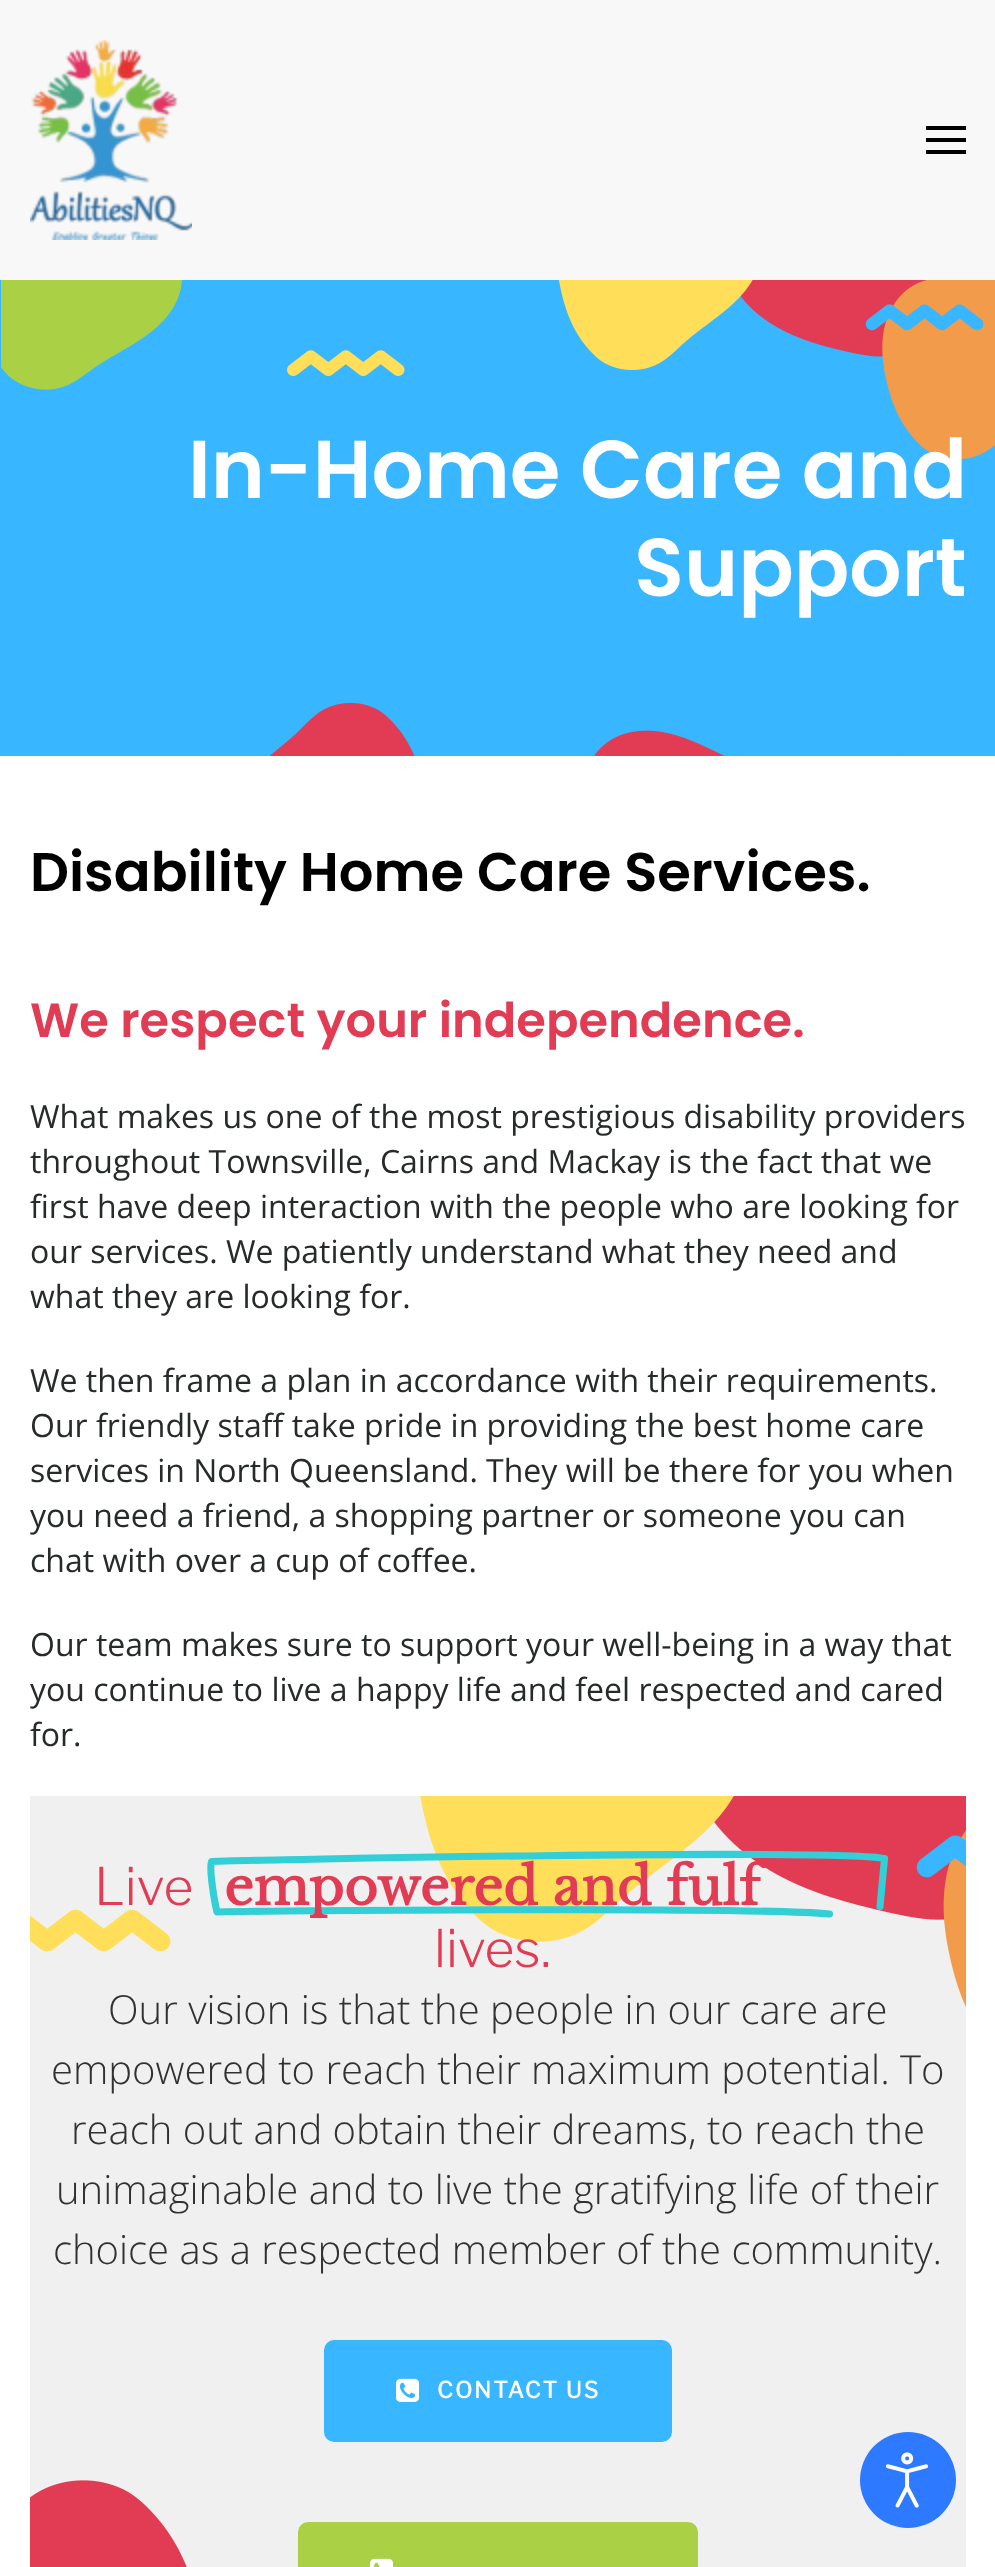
<?xml version="1.0" encoding="UTF-8"?>
<svg xmlns="http://www.w3.org/2000/svg" xmlns:xlink="http://www.w3.org/1999/xlink" width="995" height="2567">
  <rect width="100%" height="100%" fill="#ffffff" />
  <rect width="995" height="280" fill="#f8f8f8" />
  <image x="30" y="40" width="162" height="200" xlink:href="image1.png" />
  <rect x="926" y="126" width="40" height="4" fill="#000000" />
  <rect x="926" y="138" width="40" height="4" fill="#000000" />
  <rect x="926" y="150" width="40" height="4" fill="#000000" />
  <rect y="280" width="995" height="476" fill="#38b6ff" />
  <image x="1" y="280" width="994" height="476" xlink:href="image2.png" />
  <rect x="30" y="1796" width="936" height="771" fill="#f0f0f0" />
  <image x="30" y="1796" width="936" height="771" xlink:href="image3.png" />
  <path d="M 829.5 1914 c -86.5 -8 -592 -2.5 -612.5 -2 c -2.5 -10 -8 -42.5 -5.5 -50.5 c 31.5 -1.5 626 -13 673 -3 l -4.5 48" fill="none" stroke="#32cfd6" stroke-width="7.1" stroke-linecap="round" stroke-linejoin="round" />
  <rect x="324" y="2340" width="348" height="102" rx="10" fill="#38b6ff" />
  <image x="396" y="2378" width="24" height="24" xlink:href="image4.png" />
  <rect x="298" y="2522" width="400" height="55" rx="10" fill="#aad145" />
  <image x="370" y="2558" width="24" height="9" xlink:href="image5.png" />
  <circle cx="908" cy="2480" r="48" fill="#2d79ff" />
  <image x="885" y="2452" width="44" height="56" xlink:href="image6.png" />
  <text x="188" y="498" style="font-family: Poppins; font-size: 82px; font-weight: 600; fill: #ffffff">In-Home Care and</text>
  <text x="634" y="596" style="font-family: Poppins; font-size: 82px; font-weight: 600; fill: #ffffff">Support</text>
  <text x="30" y="891" style="font-family: Poppins; font-size: 54.4px; font-weight: 600; fill: #000000">Disability Home Care Services.</text>
  <text x="30" y="1037" style="font-family: Poppins; font-size: 48px; font-weight: 600; fill: #e13c54">We respect your independence.</text>
  <text x="30" y="1128" style="font-family: Open Sans; font-size: 32px; fill: #272a2a">What makes us one of the most prestigious disability providers</text>
  <text x="30" y="1173" style="font-family: Open Sans; font-size: 32px; fill: #272a2a">throughout Townsville, Cairns and Mackay is the fact that we</text>
  <text x="30" y="1218" style="font-family: Open Sans; font-size: 32px; fill: #272a2a">first have deep interaction with the people who are looking for</text>
  <text x="30" y="1263" style="font-family: Open Sans; font-size: 32px; fill: #272a2a">our services. We patiently understand what they need and</text>
  <text x="30" y="1308" style="font-family: Open Sans; font-size: 32px; fill: #272a2a">what they are looking for.</text>
  <text x="30" y="1392" style="font-family: Open Sans; font-size: 32px; fill: #272a2a">We then frame a plan in accordance with their requirements.</text>
  <text x="30" y="1437" style="font-family: Open Sans; font-size: 32px; fill: #272a2a">Our friendly staff take pride in providing the best home care</text>
  <text x="30" y="1482" style="font-family: Open Sans; font-size: 32px; fill: #272a2a">services in North Queensland. They will be there for you when</text>
  <text x="30" y="1527" style="font-family: Open Sans; font-size: 32px; fill: #272a2a">you need a friend, a shopping partner or someone you can</text>
  <text x="30" y="1572" style="font-family: Open Sans; font-size: 32px; fill: #272a2a">chat with over a cup of coffee.</text>
  <text x="30" y="1656" style="font-family: Open Sans; font-size: 32px; fill: #272a2a">Our team makes sure to support your well-being in a way that</text>
  <text x="30" y="1701" style="font-family: Open Sans; font-size: 32px; fill: #272a2a">you continue to live a happy life and feel respected and cared</text>
  <text x="30" y="1746" style="font-family: Open Sans; font-size: 32px; fill: #272a2a">for.</text>
  <text x="94" y="1905" style="font-family: Libre Franklin; font-size: 51.6px; font-weight: 300; fill: #e13c54">Live</text>
  <text x="224" y="1905" style="font-family: Libre Baskerville; font-size: 51.6px; font-weight: bold; fill: #e13c54">empowered and fulf</text>
  <text x="434" y="1967" style="font-family: Libre Franklin; font-size: 51.6px; font-weight: 300; fill: #e13c54">lives.</text>
  <text x="108" y="2024" style="font-family: Open Sans; font-size: 40px; font-weight: 300; fill: #313131">Our vision is that the people in our care are</text>
  <text x="51" y="2084" style="font-family: Open Sans; font-size: 40px; font-weight: 300; fill: #313131">empowered to reach their maximum potential. To</text>
  <text x="71" y="2144" style="font-family: Open Sans; font-size: 40px; font-weight: 300; fill: #313131">reach out and obtain their dreams, to reach the</text>
  <text x="56" y="2204" style="font-family: Open Sans; font-size: 40px; font-weight: 300; fill: #313131">unimaginable and to live the gratifying life of their</text>
  <text x="53" y="2264" style="font-family: Open Sans; font-size: 40px; font-weight: 300; fill: #313131">choice as a respected member of the community.</text>
  <text x="437" y="2398" style="font-family: Libre Franklin; font-size: 22.5px; font-weight: bold; letter-spacing: 2px; fill: #ffffff">CONTACT US</text>
</svg>
